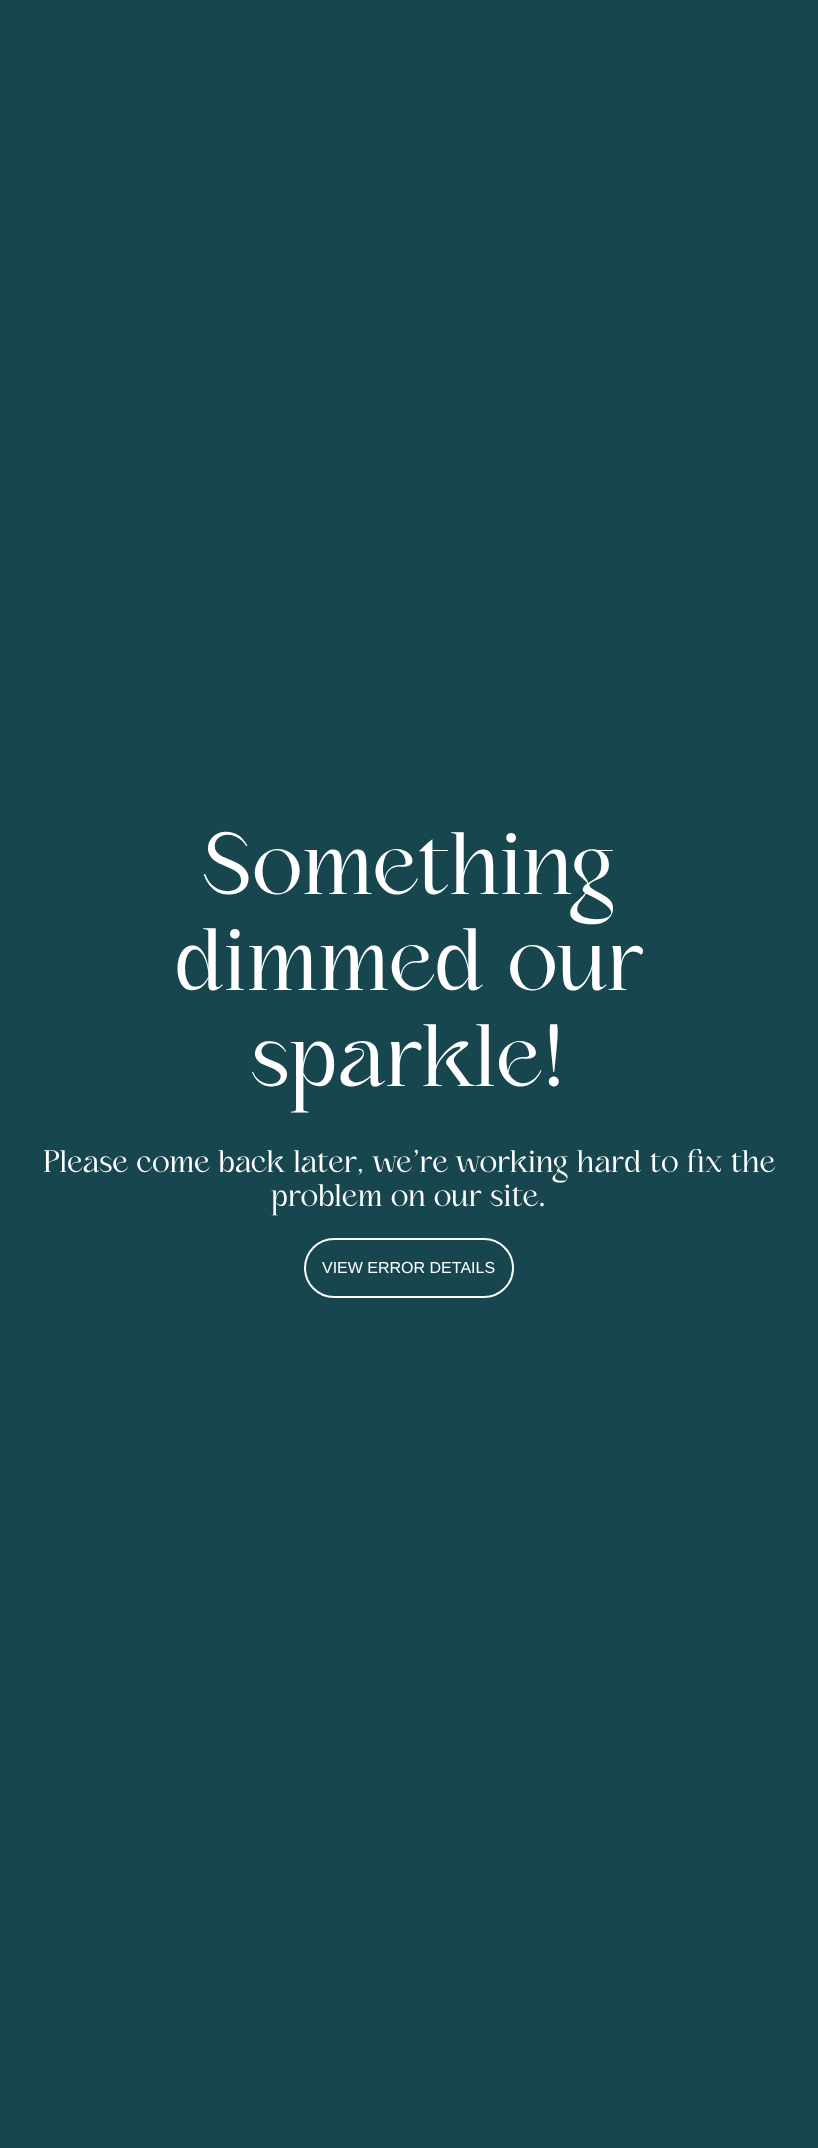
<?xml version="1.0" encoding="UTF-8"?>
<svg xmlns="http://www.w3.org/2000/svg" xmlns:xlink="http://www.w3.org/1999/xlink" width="818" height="2148">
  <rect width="100%" height="100%" fill="#18464e" />
  <rect x="305" y="1239" width="208" height="58" rx="29" fill="none" stroke="#ffffff" stroke-width="2" />
  <text x="203" y="894" style="font-family: 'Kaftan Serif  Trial'; font-size: 80px; fill: #ffffff">Something</text>
  <text x="174" y="990" style="font-family: 'Kaftan Serif  Trial'; font-size: 80px; fill: #ffffff">dimmed our</text>
  <text x="251" y="1086" style="font-family: 'Kaftan Serif  Trial'; font-size: 80px; fill: #ffffff">sparkle!</text>
  <text x="43" y="1172" style="font-family: 'Kaftan Serif  Trial'; font-size: 28px; fill: #ffffff">Please come back later, we’re working hard to fix the</text>
  <text x="271" y="1206" style="font-family: 'Kaftan Serif  Trial'; font-size: 28px; fill: #ffffff">problem on our site.</text>
  <text x="322" y="1273" style="font-family: Liberation Sans; font-size: 16px; fill: #ffffff">VIEW ERROR DETAILS</text>
</svg>
